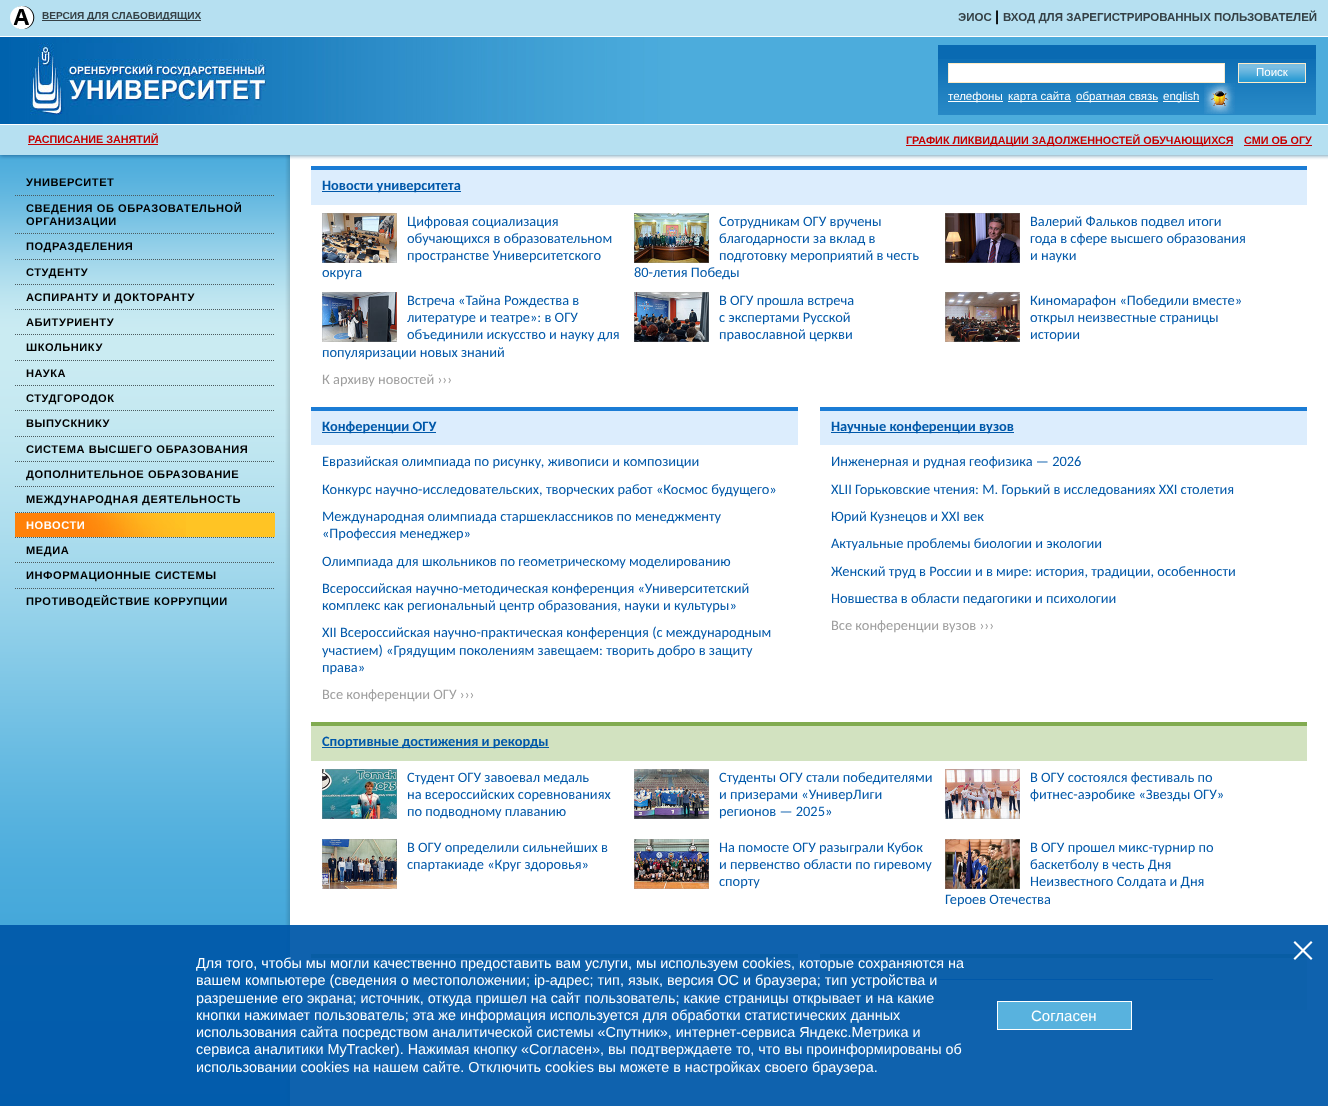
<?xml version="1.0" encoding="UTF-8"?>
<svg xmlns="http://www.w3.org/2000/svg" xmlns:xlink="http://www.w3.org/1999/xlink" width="1328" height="1106">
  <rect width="100%" height="100%" fill="#ffffff" />
  <rect width="1328" height="155" fill="#b6e0f1" />
  <image x="10" y="6" width="25" height="23" xlink:href="image1.png" />
  <rect x="42" y="20" width="159" height="1" fill="#354146" />
  <rect x="670" y="37" width="658" height="87" fill="#4cacdc" />
  <image x="0" y="37" width="670" height="87" xlink:href="image2.png" />
  <rect y="36" width="1328" height="1" fill="#ffffff" />
  <rect y="124" width="1328" height="1" fill="#ffffff" />
  <image x="30" y="43" width="236" height="72" xlink:href="image3.png" />
  <rect x="938" y="45" width="378" height="14" fill="#096ab2" />
  <image x="938" y="59" width="378" height="56" xlink:href="image4.png" />
  <rect x="949" y="64" width="275" height="18" fill="#ffffff" />
  <rect x="948" y="63" width="277" height="1" fill="#ffebc5" />
  <rect x="1224" y="63" width="1" height="20" fill="#f4ead2" />
  <rect x="948" y="82" width="277" height="1" fill="#ffebc5" />
  <rect x="948" y="63" width="1" height="20" fill="#f4ead2" />
  <rect x="1239" y="64" width="66" height="4" fill="#7abee2" />
  <image x="1239" y="68" width="66" height="14" xlink:href="image5.png" />
  <rect x="1238" y="63" width="68" height="1" fill="#ffebc5" />
  <rect x="1305" y="63" width="1" height="20" fill="#f4ead2" />
  <rect x="1238" y="82" width="68" height="1" fill="#ffebc5" />
  <rect x="1238" y="63" width="1" height="20" fill="#f4ead2" />
  <rect x="948" y="101" width="55" height="1" fill="#ffffff" />
  <rect x="1008" y="101" width="63" height="1" fill="#ffffff" />
  <rect x="1076" y="101" width="82" height="1" fill="#ffffff" />
  <rect x="1163" y="101" width="36" height="1" fill="#ffffff" />
  <image x="1204" y="83" width="31" height="31" xlink:href="image6.png" />
  <rect x="28" y="144" width="130" height="1" fill="#c60000" />
  <rect x="906" y="145" width="327" height="1" fill="#c60000" />
  <rect x="1244" y="145" width="68" height="1" fill="#c60000" />
  <image x="0" y="155" width="290" height="951" xlink:href="image7.png" />
  <path d="M 15 195.5 h 260" fill="none" stroke="#4c5c60" stroke-dasharray="1 1" />
  <path d="M 15 233.5 h 260" fill="none" stroke="#4c5c60" stroke-dasharray="1 1" />
  <path d="M 15 259.5 h 260" fill="none" stroke="#4c5c60" stroke-dasharray="1 1" />
  <path d="M 15 284.5 h 260" fill="none" stroke="#4c5c60" stroke-dasharray="1 1" />
  <path d="M 15 309.5 h 260" fill="none" stroke="#4c5c60" stroke-dasharray="1 1" />
  <path d="M 15 334.5 h 260" fill="none" stroke="#4c5c60" stroke-dasharray="1 1" />
  <path d="M 15 360.5 h 260" fill="none" stroke="#4c5c60" stroke-dasharray="1 1" />
  <path d="M 15 385.5 h 260" fill="none" stroke="#4c5c60" stroke-dasharray="1 1" />
  <path d="M 15 410.5 h 260" fill="none" stroke="#4c5c60" stroke-dasharray="1 1" />
  <path d="M 15 436.5 h 260" fill="none" stroke="#4c5c60" stroke-dasharray="1 1" />
  <path d="M 15 461.5 h 260" fill="none" stroke="#4c5c60" stroke-dasharray="1 1" />
  <path d="M 15 486.5 h 260" fill="none" stroke="#4c5c60" stroke-dasharray="1 1" />
  <path d="M 15 512.5 h 260" fill="none" stroke="#4c5c60" stroke-dasharray="1 1" />
  <rect x="186" y="513" width="89" height="24" fill="#ffc424" />
  <image x="15" y="513" width="171" height="24" xlink:href="image8.png" />
  <path d="M 15 537.5 h 260" fill="none" stroke="#4c5c60" stroke-dasharray="1 1" />
  <path d="M 15 562.5 h 260" fill="none" stroke="#4c5c60" stroke-dasharray="1 1" />
  <path d="M 15 588.5 h 260" fill="none" stroke="#4c5c60" stroke-dasharray="1 1" />
  <image x="290" y="155" width="1038" height="5" xlink:href="image9.png" />
  <rect x="311" y="170" width="996" height="35" fill="#dcedfd" />
  <rect x="311" y="166" width="996" height="4" fill="#1b7cd5" />
  <rect x="322" y="191" width="139" height="1" fill="#0058a9" />
  <image x="322" y="213" width="75" height="50" xlink:href="image10.png" />
  <image x="634" y="213" width="75" height="50" xlink:href="image11.png" />
  <image x="945" y="213" width="75" height="50" xlink:href="image12.png" />
  <image x="322" y="292" width="75" height="50" xlink:href="image13.png" />
  <image x="634" y="292" width="75" height="50" xlink:href="image14.png" />
  <image x="945" y="292" width="75" height="50" xlink:href="image15.png" />
  <rect x="311" y="411" width="487" height="34" fill="#dcedfd" />
  <rect x="311" y="407" width="487" height="4" fill="#1b7cd5" />
  <rect x="322" y="432" width="114" height="1" fill="#0058a9" />
  <rect x="820" y="411" width="487" height="34" fill="#dcedfd" />
  <rect x="820" y="407" width="487" height="4" fill="#1b7cd5" />
  <rect x="831" y="432" width="183" height="1" fill="#0058a9" />
  <rect x="311" y="726" width="996" height="35" fill="#d2e2c0" />
  <rect x="311" y="722" width="996" height="4" fill="#81ab50" />
  <rect x="322" y="747" width="227" height="1" fill="#0058a9" />
  <image x="322" y="769" width="75" height="50" xlink:href="image16.png" />
  <image x="634" y="769" width="75" height="50" xlink:href="image17.png" />
  <image x="945" y="769" width="75" height="50" xlink:href="image18.png" />
  <image x="322" y="839" width="75" height="50" xlink:href="image19.png" />
  <image x="634" y="839" width="75" height="50" xlink:href="image20.png" />
  <image x="945" y="839" width="75" height="50" xlink:href="image21.png" />
  <rect x="311" y="958" width="487" height="34" fill="#d2e2c0" />
  <rect x="311" y="954" width="487" height="4" fill="#81ab50" />
  <rect x="322" y="979" width="258" height="1" fill="#0058a9" />
  <rect x="820" y="958" width="487" height="52" fill="#d2e2c0" />
  <rect x="820" y="954" width="487" height="4" fill="#81ab50" />
  <rect x="831" y="979" width="382" height="1" fill="#0058a9" />
  <rect x="831" y="996" width="86" height="1" fill="#0058a9" />
  <rect y="925" width="1328" height="181" fill="#0058a9" fill-opacity="0.94" />
  <path d="M 1311 941 l 1.5 1.5 l -17.5 17.5 l -1.5 -1.5 z" fill="#ffffff" />
  <path d="M 1293.5 942.5 l 1.5 -1.5 l 17.5 17.5 l -1.5 1.5 z" fill="#ffffff" />
  <rect x="997.5" y="1001.5" width="134" height="28" fill="#58b2de" stroke="#ffffff" />
  <text x="42" y="19" style="font-family: Liberation Sans; font-size: 10.1px; font-weight: bold; fill: #354146">ВЕРСИЯ ДЛЯ СЛАБОВИДЯЩИХ</text>
  <text x="958" y="21" style="font-family: Liberation Sans; font-size: 11.5px; font-weight: bold; fill: #354146">ЭИОС</text>
  <text x="995" y="21" style="font-family: Liberation Sans; font-size: 14.4px; font-weight: bold; fill: #000000">|</text>
  <text x="1003" y="21" style="font-family: Liberation Sans; font-size: 11.5px; font-weight: bold; fill: #354146">ВХОД ДЛЯ ЗАРЕГИСТРИРОВАННЫХ ПОЛЬЗОВАТЕЛЕЙ</text>
  <text x="1256" y="76" style="font-family: Liberation Sans; font-size: 11.5px; fill: #ffffff">Поиск</text>
  <text x="948" y="100" style="font-family: Liberation Sans; font-size: 11.5px; fill: #ffffff">телефоны</text>
  <text x="1008" y="100" style="font-family: Liberation Sans; font-size: 11.5px; fill: #ffffff">карта сайта</text>
  <text x="1076" y="100" style="font-family: Liberation Sans; font-size: 11.5px; fill: #ffffff">обратная связь</text>
  <text x="1163" y="100" style="font-family: Liberation Sans; font-size: 11.5px; fill: #ffffff">english</text>
  <text x="28" y="143" style="font-family: Liberation Sans; font-size: 10.8px; font-weight: bold; fill: #c60000">РАСПИСАНИЕ ЗАНЯТИЙ</text>
  <text x="906" y="144" style="font-family: Liberation Sans; font-size: 10.8px; font-weight: bold; fill: #c60000">ГРАФИК ЛИКВИДАЦИИ ЗАДОЛЖЕННОСТЕЙ ОБУЧАЮЩИХСЯ</text>
  <text x="1244" y="144" style="font-family: Liberation Sans; font-size: 10.8px; font-weight: bold; fill: #c60000">СМИ ОБ ОГУ</text>
  <text x="26" y="186" style="font-family: Liberation Sans; font-size: 11.1px; font-weight: bold; letter-spacing: 0.55px; fill: #000000">УНИВЕРСИТЕТ</text>
  <text x="26" y="212" style="font-family: Liberation Sans; font-size: 11.1px; font-weight: bold; letter-spacing: 0.55px; fill: #000000">СВЕДЕНИЯ ОБ ОБРАЗОВАТЕЛЬНОЙ</text>
  <text x="26" y="225" style="font-family: Liberation Sans; font-size: 11.1px; font-weight: bold; letter-spacing: 0.55px; fill: #000000">ОРГАНИЗАЦИИ</text>
  <text x="26" y="250" style="font-family: Liberation Sans; font-size: 11.1px; font-weight: bold; letter-spacing: 0.55px; fill: #000000">ПОДРАЗДЕЛЕНИЯ</text>
  <text x="26" y="276" style="font-family: Liberation Sans; font-size: 11.1px; font-weight: bold; letter-spacing: 0.55px; fill: #000000">СТУДЕНТУ</text>
  <text x="26" y="301" style="font-family: Liberation Sans; font-size: 11.1px; font-weight: bold; letter-spacing: 0.55px; fill: #000000">АСПИРАНТУ И ДОКТОРАНТУ</text>
  <text x="26" y="326" style="font-family: Liberation Sans; font-size: 11.1px; font-weight: bold; letter-spacing: 0.55px; fill: #000000">АБИТУРИЕНТУ</text>
  <text x="26" y="351" style="font-family: Liberation Sans; font-size: 11.1px; font-weight: bold; letter-spacing: 0.55px; fill: #000000">ШКОЛЬНИКУ</text>
  <text x="26" y="377" style="font-family: Liberation Sans; font-size: 11.1px; font-weight: bold; letter-spacing: 0.55px; fill: #000000">НАУКА</text>
  <text x="26" y="402" style="font-family: Liberation Sans; font-size: 11.1px; font-weight: bold; letter-spacing: 0.55px; fill: #000000">СТУДГОРОДОК</text>
  <text x="26" y="427" style="font-family: Liberation Sans; font-size: 11.1px; font-weight: bold; letter-spacing: 0.55px; fill: #000000">ВЫПУСКНИКУ</text>
  <text x="26" y="453" style="font-family: Liberation Sans; font-size: 11.1px; font-weight: bold; letter-spacing: 0.55px; fill: #000000">СИСТЕМА ВЫСШЕГО ОБРАЗОВАНИЯ</text>
  <text x="26" y="478" style="font-family: Liberation Sans; font-size: 11.1px; font-weight: bold; letter-spacing: 0.55px; fill: #000000">ДОПОЛНИТЕЛЬНОЕ ОБРАЗОВАНИЕ</text>
  <text x="26" y="503" style="font-family: Liberation Sans; font-size: 11.1px; font-weight: bold; letter-spacing: 0.55px; fill: #000000">МЕЖДУНАРОДНАЯ ДЕЯТЕЛЬНОСТЬ</text>
  <text x="26" y="529" style="font-family: Liberation Sans; font-size: 11.1px; font-weight: bold; letter-spacing: 0.55px; fill: #ffffff">НОВОСТИ</text>
  <text x="26" y="554" style="font-family: Liberation Sans; font-size: 11.1px; font-weight: bold; letter-spacing: 0.55px; fill: #000000">МЕДИА</text>
  <text x="26" y="579" style="font-family: Liberation Sans; font-size: 11.1px; font-weight: bold; letter-spacing: 0.55px; fill: #000000">ИНФОРМАЦИОННЫЕ СИСТЕМЫ</text>
  <text x="26" y="605" style="font-family: Liberation Sans; font-size: 11.1px; font-weight: bold; letter-spacing: 0.55px; fill: #000000">ПРОТИВОДЕЙСТВИЕ КОРРУПЦИИ</text>
  <text x="322" y="190" style="font-family: Carlito; font-size: 14.4px; font-weight: bold; fill: #0058a9">Новости университета</text>
  <text x="407" y="226" style="font-family: Carlito; font-size: 14.4px; fill: #0058a9">Цифровая социализация</text>
  <text x="407" y="243" style="font-family: Carlito; font-size: 14.4px; fill: #0058a9">обучающихся в образовательном</text>
  <text x="407" y="260" style="font-family: Carlito; font-size: 14.4px; fill: #0058a9">пространстве Университетского</text>
  <text x="322" y="277" style="font-family: Carlito; font-size: 14.4px; fill: #0058a9">округа</text>
  <text x="719" y="226" style="font-family: Carlito; font-size: 14.4px; fill: #0058a9">Сотрудникам ОГУ вручены</text>
  <text x="719" y="243" style="font-family: Carlito; font-size: 14.4px; fill: #0058a9">благодарности за вклад в</text>
  <text x="719" y="260" style="font-family: Carlito; font-size: 14.4px; fill: #0058a9">подготовку мероприятий в честь</text>
  <text x="634" y="277" style="font-family: Carlito; font-size: 14.4px; fill: #0058a9">80-летия Победы</text>
  <text x="1030" y="226" style="font-family: Carlito; font-size: 14.4px; fill: #0058a9">Валерий Фальков подвел итоги</text>
  <text x="1030" y="243" style="font-family: Carlito; font-size: 14.4px; fill: #0058a9">года в сфере высшего образования</text>
  <text x="1030" y="260" style="font-family: Carlito; font-size: 14.4px; fill: #0058a9">и науки</text>
  <text x="407" y="305" style="font-family: Carlito; font-size: 14.4px; fill: #0058a9">Встреча «Тайна Рождества в</text>
  <text x="407" y="322" style="font-family: Carlito; font-size: 14.4px; fill: #0058a9">литературе и театре»: в ОГУ</text>
  <text x="407" y="339" style="font-family: Carlito; font-size: 14.4px; fill: #0058a9">объединили искусство и науку для</text>
  <text x="322" y="357" style="font-family: Carlito; font-size: 14.4px; fill: #0058a9">популяризации новых знаний</text>
  <text x="719" y="305" style="font-family: Carlito; font-size: 14.4px; fill: #0058a9">В ОГУ прошла встреча</text>
  <text x="719" y="322" style="font-family: Carlito; font-size: 14.4px; fill: #0058a9">с экспертами Русской</text>
  <text x="719" y="339" style="font-family: Carlito; font-size: 14.4px; fill: #0058a9">православной церкви</text>
  <text x="1030" y="305" style="font-family: Carlito; font-size: 14.4px; fill: #0058a9">Киномарафон «Победили вместе»</text>
  <text x="1030" y="322" style="font-family: Carlito; font-size: 14.4px; fill: #0058a9">открыл неизвестные страницы</text>
  <text x="1030" y="339" style="font-family: Carlito; font-size: 14.4px; fill: #0058a9">истории</text>
  <text x="322" y="384" style="font-family: Carlito; font-size: 14.4px; fill: #9e9e9e">К архиву новостей ›››</text>
  <text x="322" y="431" style="font-family: Carlito; font-size: 14.4px; font-weight: bold; fill: #0058a9">Конференции ОГУ</text>
  <text x="322" y="466" style="font-family: Carlito; font-size: 14.4px; fill: #0058a9">Евразийская олимпиада по рисунку, живописи и композиции</text>
  <text x="322" y="494" style="font-family: Carlito; font-size: 14.4px; fill: #0058a9">Конкурс научно-исследовательских, творческих работ «Космос будущего»</text>
  <text x="322" y="521" style="font-family: Carlito; font-size: 14.4px; fill: #0058a9">Международная олимпиада старшеклассников по менеджменту</text>
  <text x="322" y="538" style="font-family: Carlito; font-size: 14.4px; fill: #0058a9">«Профессия менеджер»</text>
  <text x="322" y="566" style="font-family: Carlito; font-size: 14.4px; fill: #0058a9">Олимпиада для школьников по геометрическому моделированию</text>
  <text x="322" y="593" style="font-family: Carlito; font-size: 14.4px; fill: #0058a9">Всероссийская научно-методическая конференция «Университетский</text>
  <text x="322" y="610" style="font-family: Carlito; font-size: 14.4px; fill: #0058a9">комплекс как региональный центр образования, науки и культуры»</text>
  <text x="322" y="637" style="font-family: Carlito; font-size: 14.4px; fill: #0058a9">XII Всероссийская научно-практическая конференция (с международным</text>
  <text x="322" y="655" style="font-family: Carlito; font-size: 14.4px; fill: #0058a9">участием) «Грядущим поколениям завещаем: творить добро в защиту</text>
  <text x="322" y="672" style="font-family: Carlito; font-size: 14.4px; fill: #0058a9">права»</text>
  <text x="322" y="699" style="font-family: Carlito; font-size: 14.4px; fill: #9e9e9e">Все конференции ОГУ ›››</text>
  <text x="831" y="431" style="font-family: Carlito; font-size: 14.4px; font-weight: bold; fill: #0058a9">Научные конференции вузов</text>
  <text x="831" y="466" style="font-family: Carlito; font-size: 14.4px; fill: #0058a9">Инженерная и рудная геофизика — 2026</text>
  <text x="831" y="494" style="font-family: Carlito; font-size: 14.4px; fill: #0058a9">XLII Горьковские чтения: М. Горький в исследованиях ХХI столетия</text>
  <text x="831" y="521" style="font-family: Carlito; font-size: 14.4px; fill: #0058a9">Юрий Кузнецов и XXI век</text>
  <text x="831" y="548" style="font-family: Carlito; font-size: 14.4px; fill: #0058a9">Актуальные проблемы биологии и экологии</text>
  <text x="831" y="576" style="font-family: Carlito; font-size: 14.4px; fill: #0058a9">Женский труд в России и в мире: история, традиции, особенности</text>
  <text x="831" y="603" style="font-family: Carlito; font-size: 14.4px; fill: #0058a9">Новшества в области педагогики и психологии</text>
  <text x="831" y="630" style="font-family: Carlito; font-size: 14.4px; fill: #9e9e9e">Все конференции вузов ›››</text>
  <text x="322" y="746" style="font-family: Carlito; font-size: 14.4px; font-weight: bold; fill: #0058a9">Спортивные достижения и рекорды</text>
  <text x="407" y="782" style="font-family: Carlito; font-size: 14.4px; fill: #0058a9">Студент ОГУ завоевал медаль</text>
  <text x="407" y="799" style="font-family: Carlito; font-size: 14.4px; fill: #0058a9">на всероссийских соревнованиях</text>
  <text x="407" y="816" style="font-family: Carlito; font-size: 14.4px; fill: #0058a9">по подводному плаванию</text>
  <text x="719" y="782" style="font-family: Carlito; font-size: 14.4px; fill: #0058a9">Студенты ОГУ стали победителями</text>
  <text x="719" y="799" style="font-family: Carlito; font-size: 14.4px; fill: #0058a9">и призерами «УниверЛиги</text>
  <text x="719" y="816" style="font-family: Carlito; font-size: 14.4px; fill: #0058a9">регионов — 2025»</text>
  <text x="1030" y="782" style="font-family: Carlito; font-size: 14.4px; fill: #0058a9">В ОГУ состоялся фестиваль по</text>
  <text x="1030" y="799" style="font-family: Carlito; font-size: 14.4px; fill: #0058a9">фитнес-аэробике «Звезды ОГУ»</text>
  <text x="407" y="852" style="font-family: Carlito; font-size: 14.4px; fill: #0058a9">В ОГУ определили сильнейших в</text>
  <text x="407" y="869" style="font-family: Carlito; font-size: 14.4px; fill: #0058a9">спартакиаде «Круг здоровья»</text>
  <text x="719" y="852" style="font-family: Carlito; font-size: 14.4px; fill: #0058a9">На помосте ОГУ разыграли Кубок</text>
  <text x="719" y="869" style="font-family: Carlito; font-size: 14.4px; fill: #0058a9">и первенство области по гиревому</text>
  <text x="719" y="886" style="font-family: Carlito; font-size: 14.4px; fill: #0058a9">спорту</text>
  <text x="1030" y="852" style="font-family: Carlito; font-size: 14.4px; fill: #0058a9">В ОГУ прошел микс-турнир по</text>
  <text x="1030" y="869" style="font-family: Carlito; font-size: 14.4px; fill: #0058a9">баскетболу в честь Дня</text>
  <text x="1030" y="886" style="font-family: Carlito; font-size: 14.4px; fill: #0058a9">Неизвестного Солдата и Дня</text>
  <text x="945" y="904" style="font-family: Carlito; font-size: 14.4px; fill: #0058a9">Героев Отечества</text>
  <text x="196" y="968" style="font-family: Liberation Sans; font-size: 14.4px; fill: #ffffff">Для того, чтобы мы могли качественно предоставить вам услуги, мы используем cookies, которые сохраняются на</text>
  <text x="196" y="985" style="font-family: Liberation Sans; font-size: 14.4px; fill: #ffffff">вашем компьютере (сведения о местоположении; ip-адрес; тип, язык, версия ОС и браузера; тип устройства и</text>
  <text x="196" y="1003" style="font-family: Liberation Sans; font-size: 14.4px; fill: #ffffff">разрешение его экрана; источник, откуда пришел на сайт пользователь; какие страницы открывает и на какие</text>
  <text x="196" y="1020" style="font-family: Liberation Sans; font-size: 14.4px; fill: #ffffff">кнопки нажимает пользователь; эта же информация используется для обработки статистических данных</text>
  <text x="196" y="1037" style="font-family: Liberation Sans; font-size: 14.4px; fill: #ffffff">использования сайта посредством аналитической системы «Спутник», интернет-сервиса Яндекс.Метрика и</text>
  <text x="196" y="1054" style="font-family: Liberation Sans; font-size: 14.4px; fill: #ffffff">сервиса аналитики MyTracker). Нажимая кнопку «Согласен», вы подтверждаете то, что вы проинформированы об</text>
  <text x="196" y="1072" style="font-family: Liberation Sans; font-size: 14.4px; fill: #ffffff">использовании cookies на нашем сайте. Отключить cookies вы можете в настройках своего браузера.</text>
  <text x="1031" y="1021" style="font-family: Liberation Sans; font-size: 15px; fill: #ffffff">Согласен</text>
</svg>
